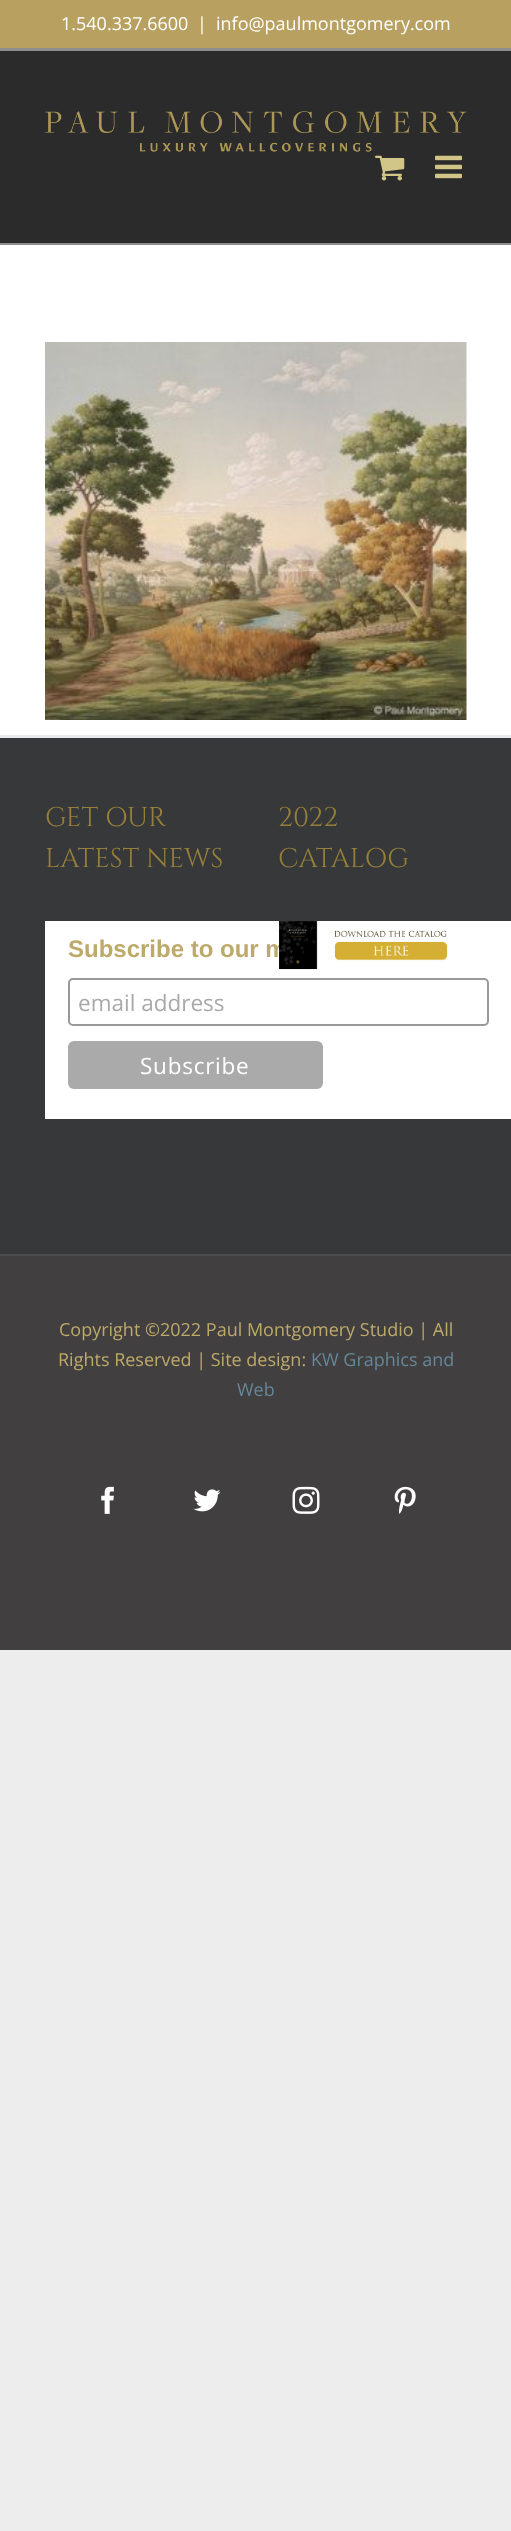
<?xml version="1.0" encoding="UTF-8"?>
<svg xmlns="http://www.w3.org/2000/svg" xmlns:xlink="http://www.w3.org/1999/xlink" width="511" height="2531">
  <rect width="100%" height="100%" fill="#ededed" />
  <rect y="245" width="511" height="490" fill="#ffffff" />
  <rect width="511" height="48" fill="#b8a060" />
  <rect y="48" width="511" height="3" fill="#8e8e8e" />
  <rect y="51" width="511" height="192" fill="#2b2b2b" />
  <rect y="243" width="511" height="2" fill="#8e8e8e" />
  <image x="45" y="111" width="422" height="41" xlink:href="image1.png" />
  <image x="375" y="155" width="30" height="26" xlink:href="image2.png" />
  <image x="435" y="155" width="27" height="24" xlink:href="image3.png" />
  <image x="45" y="342" width="422" height="378" xlink:href="image4.png" />
  <rect y="738" width="511" height="516" fill="#363839" />
  <rect y="735" width="511" height="3" fill="#e9eaee" />
  <rect x="45" y="921" width="466" height="198" fill="#ffffff" />
  <rect x="69" y="979" width="419" height="46" rx="4" fill="none" stroke="#999999" stroke-width="2" />
  <rect x="68" y="1041" width="255" height="48" rx="6" fill="#aaaaaa" />
  <rect y="1256" width="511" height="394" fill="#423f40" />
  <rect y="1254" width="511" height="2" fill="#4b4c4d" />
  <image x="101" y="1486" width="13" height="28" xlink:href="image6.png" />
  <image x="193" y="1489" width="28" height="23" xlink:href="image7.png" />
  <image x="292" y="1486" width="28" height="28" xlink:href="image8.png" />
  <image x="394" y="1486" width="22" height="28" xlink:href="image9.png" />
  <text x="61" y="30" style="font-family: Open Sans; font-size: 18px; fill: #ffffff">1.540.337.6600</text>
  <text x="197" y="30" style="font-family: Open Sans; font-size: 18px; fill: #ffffff">|</text>
  <text x="216" y="30" style="font-family: Open Sans; font-size: 18px; fill: #ffffff">info@paulmontgomery.com</text>
  <text x="45" y="826" style="font-family: Cinzel; font-size: 27px; fill: #967f3b">GET OUR</text>
  <text x="45" y="867" style="font-family: Cinzel; font-size: 27px; fill: #967f3b">LATEST NEWS</text>
  <text x="68" y="957" style="font-family: Liberation Sans; font-size: 24px; font-weight: bold; fill: #bdaa6b">Subscribe to our m</text>
  <text x="78" y="1011" style="font-family: Open Sans; font-size: 22.5px; fill: #aaa9a9">email address</text>
  <text x="140" y="1074" style="font-family: Open Sans; font-size: 22.5px; letter-spacing: 0.75px; fill: #ffffff">Subscribe</text>
  <text x="278" y="826" style="font-family: Cinzel; font-size: 27px; fill: #967f3b">2022</text>
  <text x="278" y="867" style="font-family: Cinzel; font-size: 27px; fill: #967f3b">CATALOG</text>
  <image x="279" y="921" width="169" height="49" xlink:href="image5.png" />
  <text x="59" y="1336" style="font-family: Open Sans; font-size: 18px; fill: #bdaa6b">Copyright ©2022 Paul Montgomery Studio | All</text>
  <text x="58" y="1366" style="font-family: Open Sans; font-size: 18px; fill: #bdaa6b">Rights Reserved | Site design:</text>
  <text x="311" y="1366" style="font-family: Open Sans; font-size: 18px; fill: #658799">KW Graphics and</text>
  <text x="237" y="1396" style="font-family: Open Sans; font-size: 18px; fill: #658799">Web</text>
</svg>
